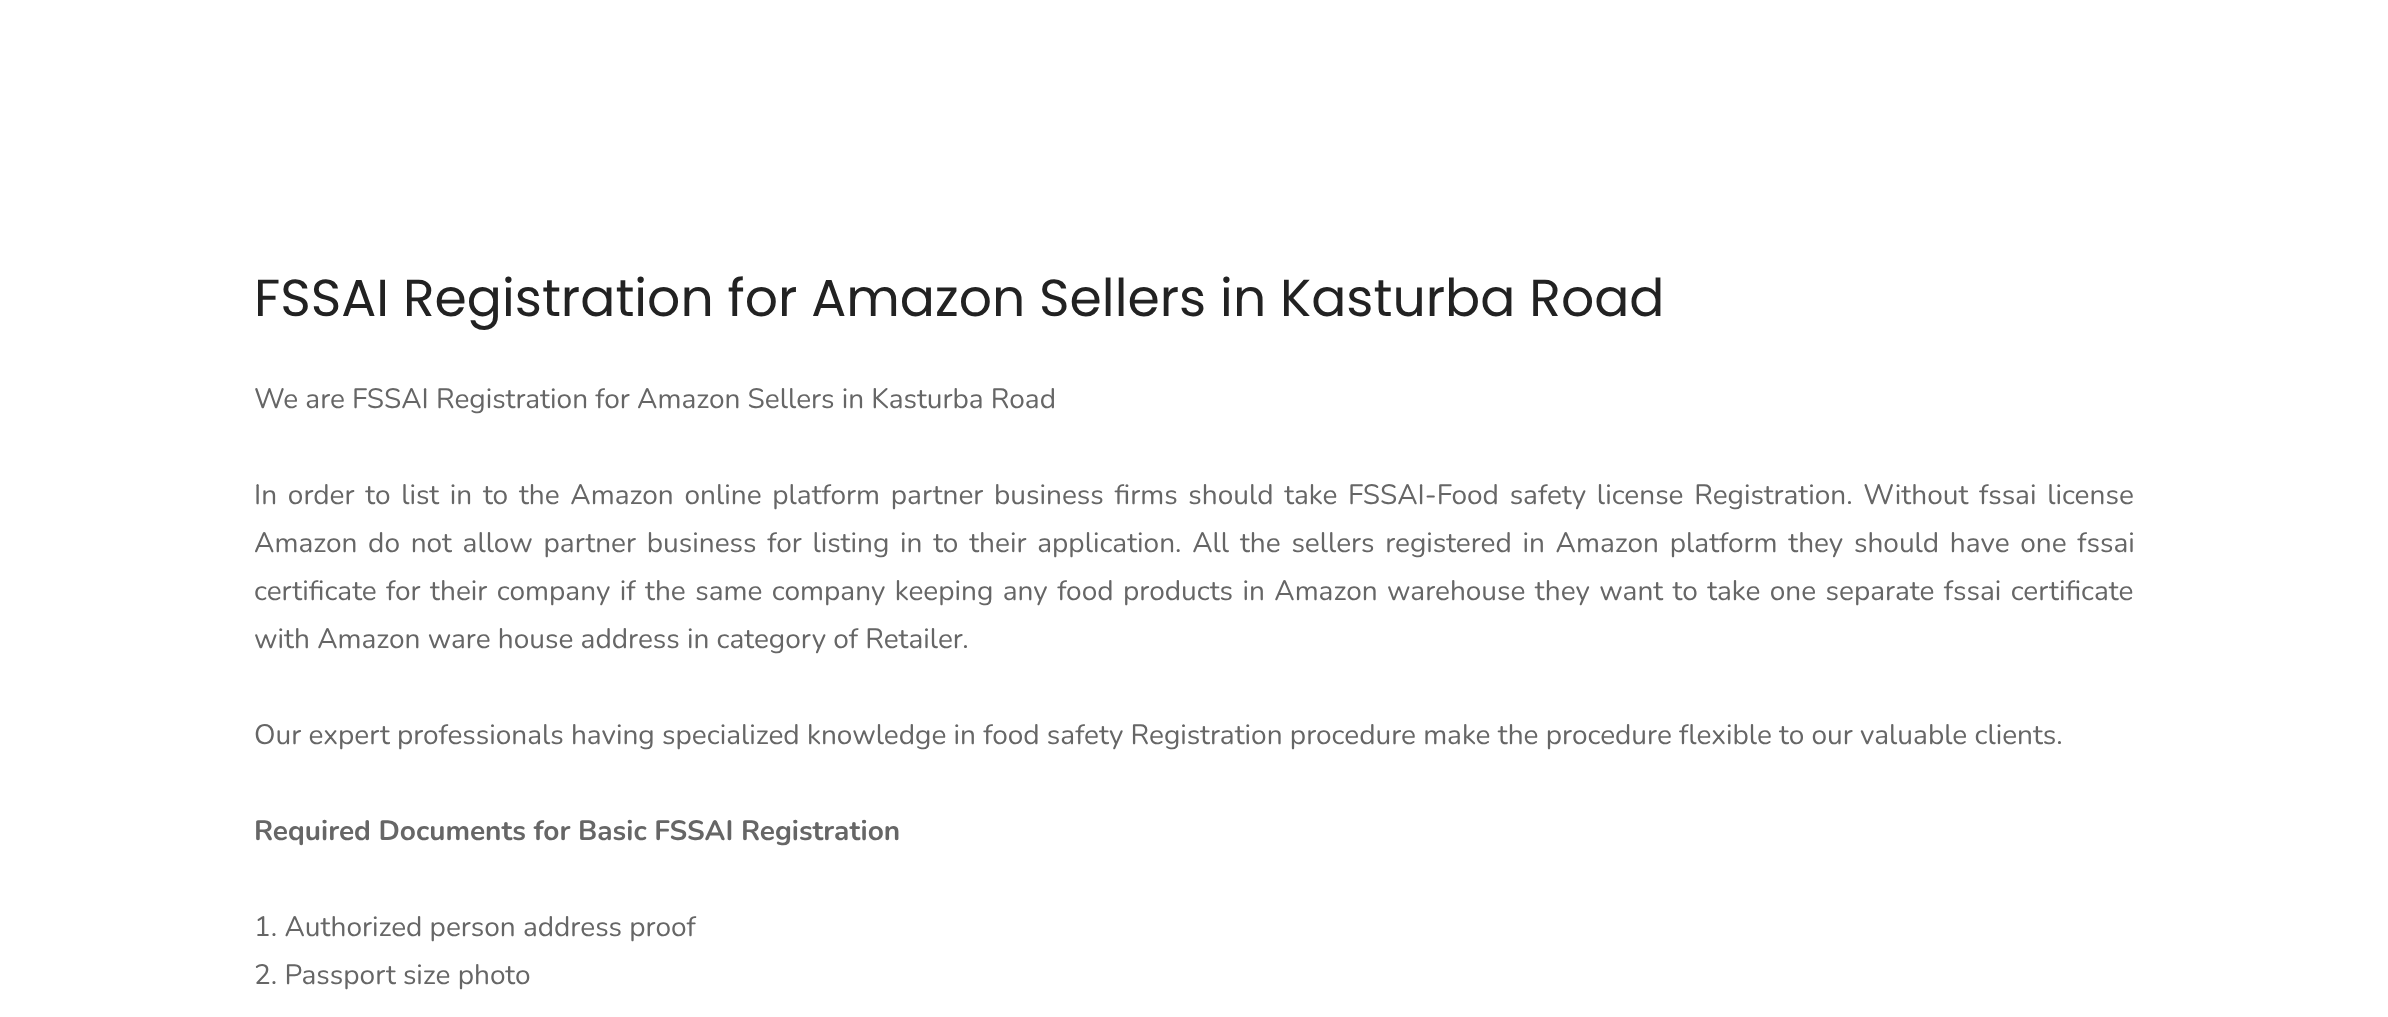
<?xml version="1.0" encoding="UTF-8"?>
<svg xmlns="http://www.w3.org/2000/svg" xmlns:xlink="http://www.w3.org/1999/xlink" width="2388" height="1017">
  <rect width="100%" height="100%" fill="#ffffff" />
  <text x="254" y="316" style="font-family: Poppins; font-size: 52px; fill: #222222">FSSAI Registration for Amazon Sellers in Kasturba Road</text>
  <text x="254" y="408" style="font-family: Nunito; font-size: 28px; fill: #666666">We are FSSAI Registration for Amazon Sellers in Kasturba Road</text>
  <text x="254" y="504" word-spacing="3.5" style="font-family: Nunito; font-size: 28px; fill: #666666">In order to list in to the Amazon online platform partner business firms should take FSSAI-Food safety license Registration. Without fssai license</text>
  <text x="254" y="552" word-spacing="3.5" style="font-family: Nunito; font-size: 28px; fill: #666666">Amazon do not allow partner business for listing in to their application. All the sellers registered in Amazon platform they should have one fssai</text>
  <text x="254" y="600" word-spacing="2.2" style="font-family: Nunito; font-size: 28px; fill: #666666">certificate for their company if the same company keeping any food products in Amazon warehouse they want to take one separate fssai certificate</text>
  <text x="254" y="648" style="font-family: Nunito; font-size: 28px; fill: #666666">with Amazon ware house address in category of Retailer.</text>
  <text x="254" y="744" style="font-family: Nunito; font-size: 28px; fill: #666666">Our expert professionals having specialized knowledge in food safety Registration procedure make the procedure flexible to our valuable clients.</text>
  <text x="254" y="840" style="font-family: Nunito; font-size: 28px; font-weight: bold; fill: #666666">Required Documents for Basic FSSAI Registration</text>
  <text x="254" y="936" style="font-family: Nunito; font-size: 28px; fill: #666666">1. Authorized person address proof</text>
  <text x="254" y="984" style="font-family: Nunito; font-size: 28px; fill: #666666">2. Passport size photo</text>
</svg>
